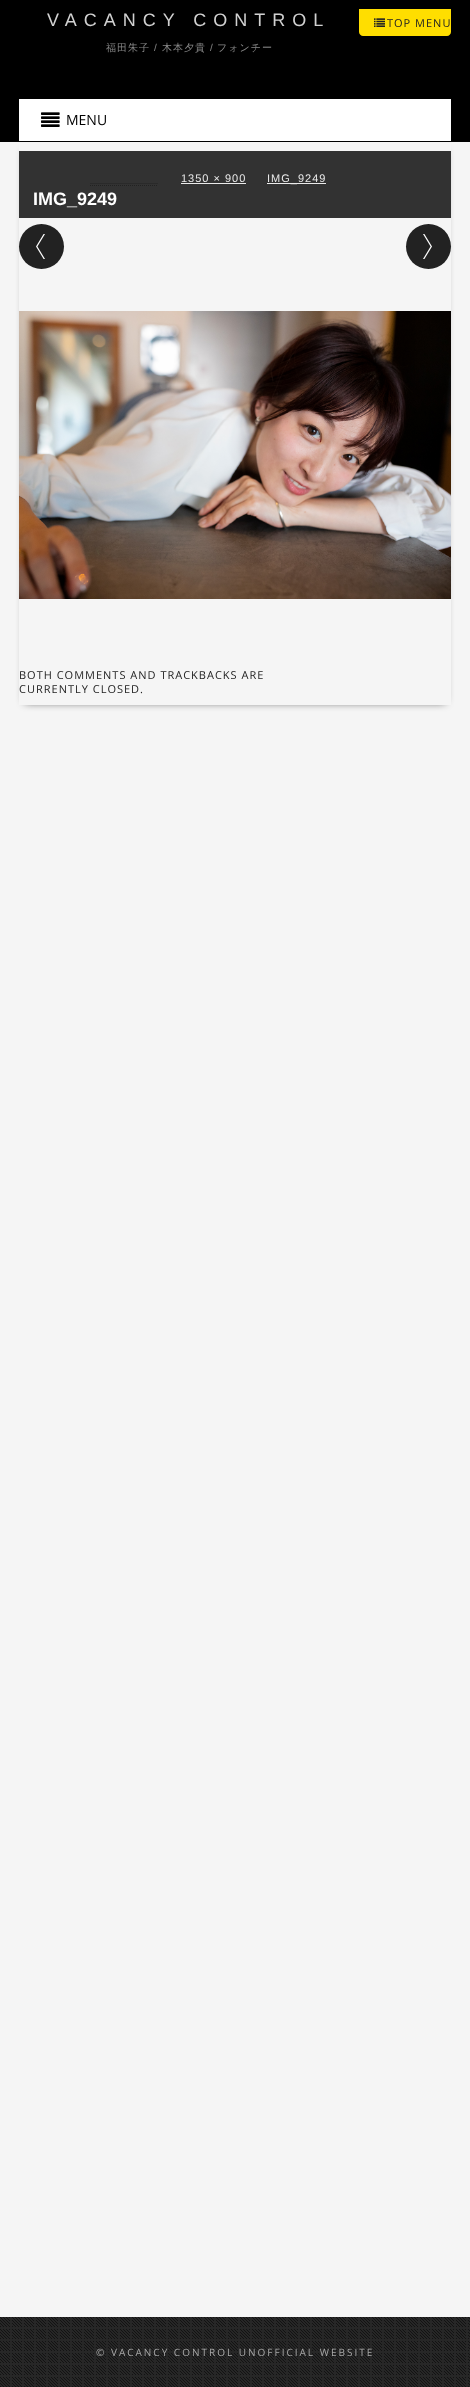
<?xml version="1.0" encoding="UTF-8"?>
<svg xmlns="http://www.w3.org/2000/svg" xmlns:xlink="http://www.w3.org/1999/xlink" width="470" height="2387">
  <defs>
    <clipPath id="clip1"><path d="M 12 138 h 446 v 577 h -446 z m 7 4 h 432 v 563 h -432 z" clip-rule="evenodd" /></clipPath>
  </defs>
  <rect width="100%" height="100%" fill="#f5f5f5" />
  <rect width="470" height="142" fill="#000000" />
  <path d="M 359 9 h 92 v 23 c 0 2 -2 4 -4 4 h -84 c -2 0 -4 -2 -4 -4 z" fill="#ffde00" />
  <image x="374" y="18" width="11" height="9" xlink:href="image1.png" />
  <g clip-path="url(#clip1)">
    <rect x="25" y="151" width="420" height="551" fill="#000000" fill-opacity="0.8" filter="blur(4px)" />
  </g>
  <rect x="19" y="99" width="432" height="42" fill="#ffffff" />
  <image x="41" y="112" width="19" height="15" xlink:href="image2.png" />
  <rect x="19" y="151" width="432" height="67" fill="#323232" />
  <path d="M 90.5 183.5 h 67.5" fill="none" stroke="#222222" stroke-dasharray="1 1" />
  <rect x="181" y="183" width="65" height="1" fill="#eaeaea" />
  <rect x="267" y="183" width="59" height="1" fill="#eaeaea" />
  <path d="M 90 185.5 h 68" fill="none" stroke="#222222" stroke-dasharray="1 1" />
  <circle cx="41.5" cy="246.5" r="22.5" fill="#222222" />
  <image x="36" y="234" width="9" height="25" xlink:href="image3.png" />
  <circle cx="428.5" cy="246.5" r="22.5" fill="#222222" />
  <image x="423" y="234" width="9" height="25" xlink:href="image4.png" />
  <image x="19" y="311" width="432" height="288" xlink:href="image5.png" />
  <rect y="2317" width="470" height="70" fill="#272727" />
  <image x="0" y="2317" width="470" height="70" xlink:href="image6.png" />
  <text x="47" y="26" style="font-family: Liberation Sans; font-size: 18px; letter-spacing: 7px; fill: #d1d1d1">VACANCY CONTROL</text>
  <text x="106" y="51" style="font-family: WenQuanYi Zen Hei; font-size: 10px; font-weight: 500; letter-spacing: 1px; fill: #888888">福田朱子</text>
  <text x="154" y="51" style="font-family: Liberation Sans; font-size: 10px; letter-spacing: 1px; fill: #888888">/</text>
  <text x="162" y="51" style="font-family: WenQuanYi Zen Hei; font-size: 10px; font-weight: 500; letter-spacing: 1px; fill: #888888">木本夕貴</text>
  <text x="210" y="51" style="font-family: Liberation Sans; font-size: 10px; letter-spacing: 1px; fill: #888888">/</text>
  <text x="217" y="51" style="font-family: WenQuanYi Zen Hei; font-size: 10px; font-weight: 500; letter-spacing: 1px; fill: #888888">フォンチー</text>
  <text x="387" y="27" style="font-family: Open Sans; font-size: 11px; letter-spacing: 1px; fill: #222222">TOP MENU</text>
  <text x="66" y="125" style="font-family: Open Sans; font-size: 14px; fill: #000000">MENU</text>
  <text x="181" y="182" style="font-family: Liberation Sans; font-size: 11px; letter-spacing: 1px; fill: #eaeaea">1350 × 900</text>
  <text x="267" y="182" style="font-family: Liberation Sans; font-size: 11px; letter-spacing: 1px; fill: #eaeaea">IMG_9249</text>
  <text x="33" y="205" style="font-family: Liberation Sans; font-size: 18px; font-weight: bold; fill: #ffffff">IMG_9249</text>
  <text x="19" y="679" style="font-family: Open Sans; font-size: 11px; letter-spacing: 1px; fill: #222222">BOTH COMMENTS AND TRACKBACKS ARE</text>
  <text x="19" y="693" style="font-family: Open Sans; font-size: 11px; letter-spacing: 1px; fill: #222222">CURRENTLY CLOSED.</text>
  <text x="96" y="2356" style="font-family: Open Sans; font-size: 10px; letter-spacing: 2px; fill: #a7a7a7">© VACANCY CONTROL UNOFFICIAL WEBSITE</text>
</svg>
